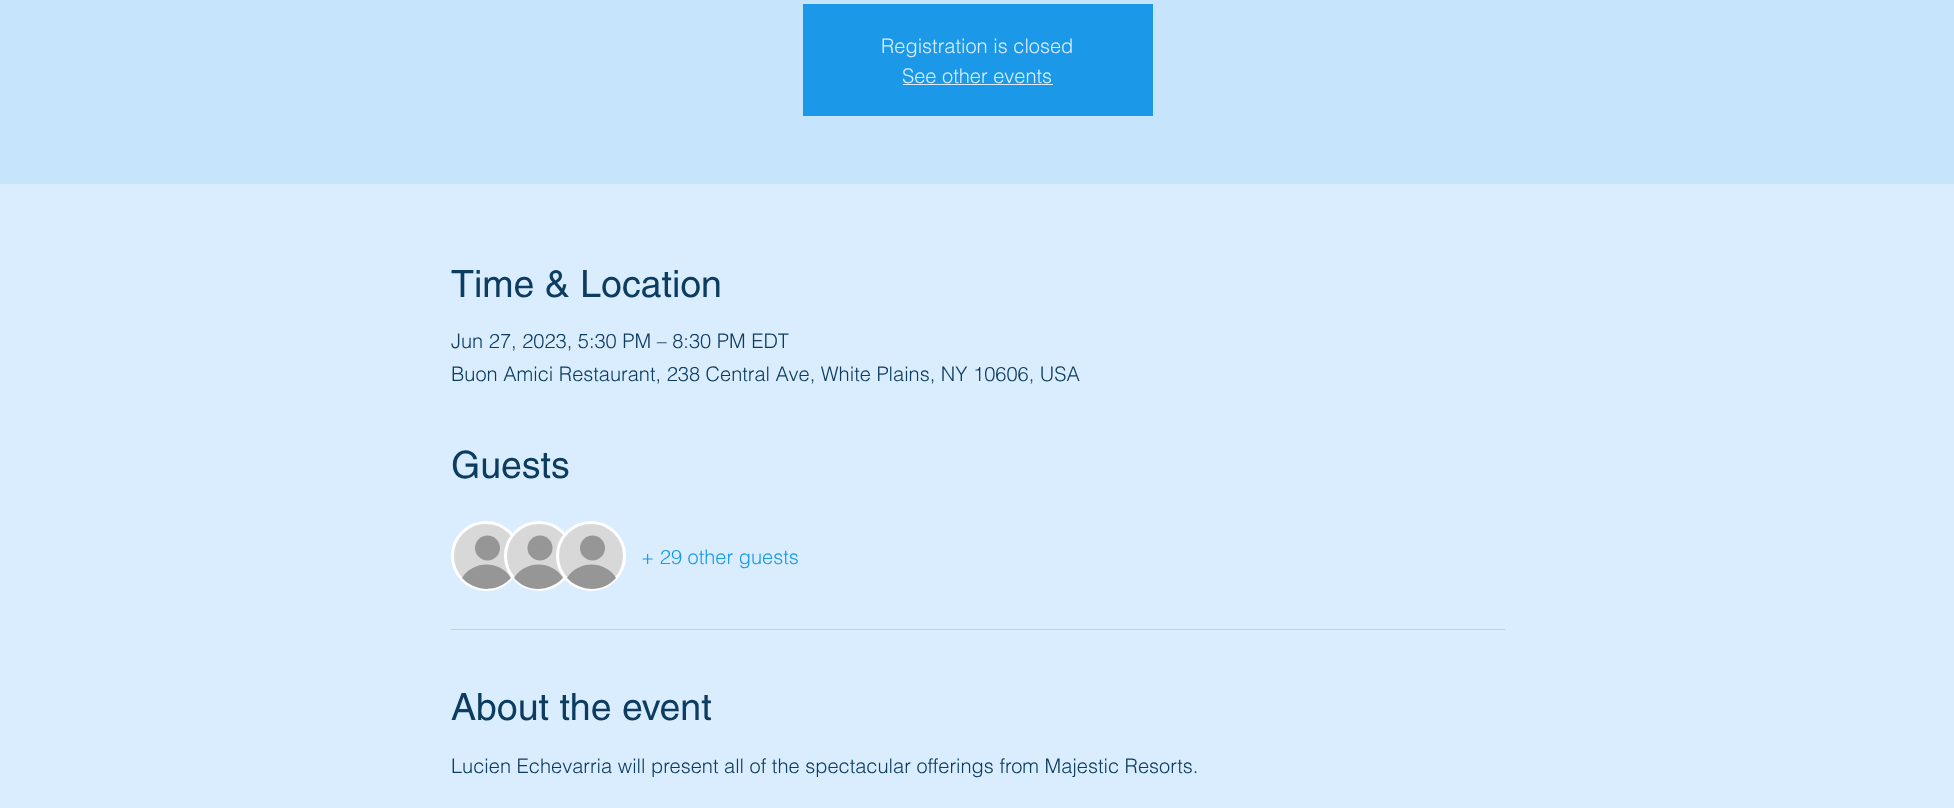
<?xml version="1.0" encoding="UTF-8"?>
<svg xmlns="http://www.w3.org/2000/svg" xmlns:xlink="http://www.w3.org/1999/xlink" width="1954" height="808">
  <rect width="100%" height="100%" fill="#daedff" />
  <rect width="1954" height="184" fill="#c6e5fd" />
  <rect x="803" y="4" width="350" height="112" fill="#1b99e8" />
  <rect x="903" y="84" width="150" height="1" fill="#daedff" />
  <circle cx="486" cy="556" r="33.5" fill="#d8d8d8" stroke="#ffffff" stroke-width="3" />
  <circle cx="487.5" cy="548" r="12.5" fill="#969696" />
  <path d="M 511 578 c -13 15 -36 14 -49 0 c 11 -18 38 -18 49 0 z" fill="#969696" />
  <circle cx="539" cy="556" r="33.5" fill="#d8d8d8" stroke="#ffffff" stroke-width="3" />
  <circle cx="540" cy="548" r="12.5" fill="#969696" />
  <path d="M 563 578 c -13 14 -36 15 -49 0 c 11 -18 38 -18 49 0 z" fill="#969696" />
  <circle cx="591" cy="556" r="33.5" fill="#d8d8d8" stroke="#ffffff" stroke-width="3" />
  <circle cx="592.5" cy="548" r="12.5" fill="#969696" />
  <path d="M 616 578 c -13 15 -36 14 -49 0 c 11 -18 38 -18 49 0 z" fill="#969696" />
  <rect x="451" y="629" width="1054" height="1" fill="#bbd2e7" />
  <text x="881" y="53" style="font-family: helvetica; font-size: 20px; font-weight: 300; fill: #daedff">Registration is closed</text>
  <text x="902" y="83" style="font-family: helvetica; font-size: 20px; font-weight: 300; fill: #daedff">See other events</text>
  <text x="451" y="297" style="font-family: helvetica; font-size: 37.5px; fill: #0c3c60">Time &amp; Location</text>
  <text x="451" y="348" style="font-family: helvetica; font-size: 20px; font-weight: 300; fill: #0c3c60">Jun 27, 2023, 5:30 PM – 8:30 PM EDT</text>
  <text x="451" y="381" style="font-family: helvetica; font-size: 20px; font-weight: 300; fill: #0c3c60">Buon Amici Restaurant, 238 Central Ave, White Plains, NY 10606, USA</text>
  <text x="451" y="478" style="font-family: helvetica; font-size: 37.5px; fill: #0c3c60">Guests</text>
  <text x="641" y="564" style="font-family: helvetica; font-size: 20px; font-weight: 300; fill: #1b99e8">+ 29 other guests</text>
  <text x="451" y="720" style="font-family: helvetica; font-size: 37.5px; fill: #0c3c60">About the event</text>
  <text x="451" y="773" style="font-family: helvetica; font-size: 20px; font-weight: 300; fill: #0c3c60">Lucien Echevarria will present all of the spectacular offerings from Majestic Resorts.</text>
</svg>
